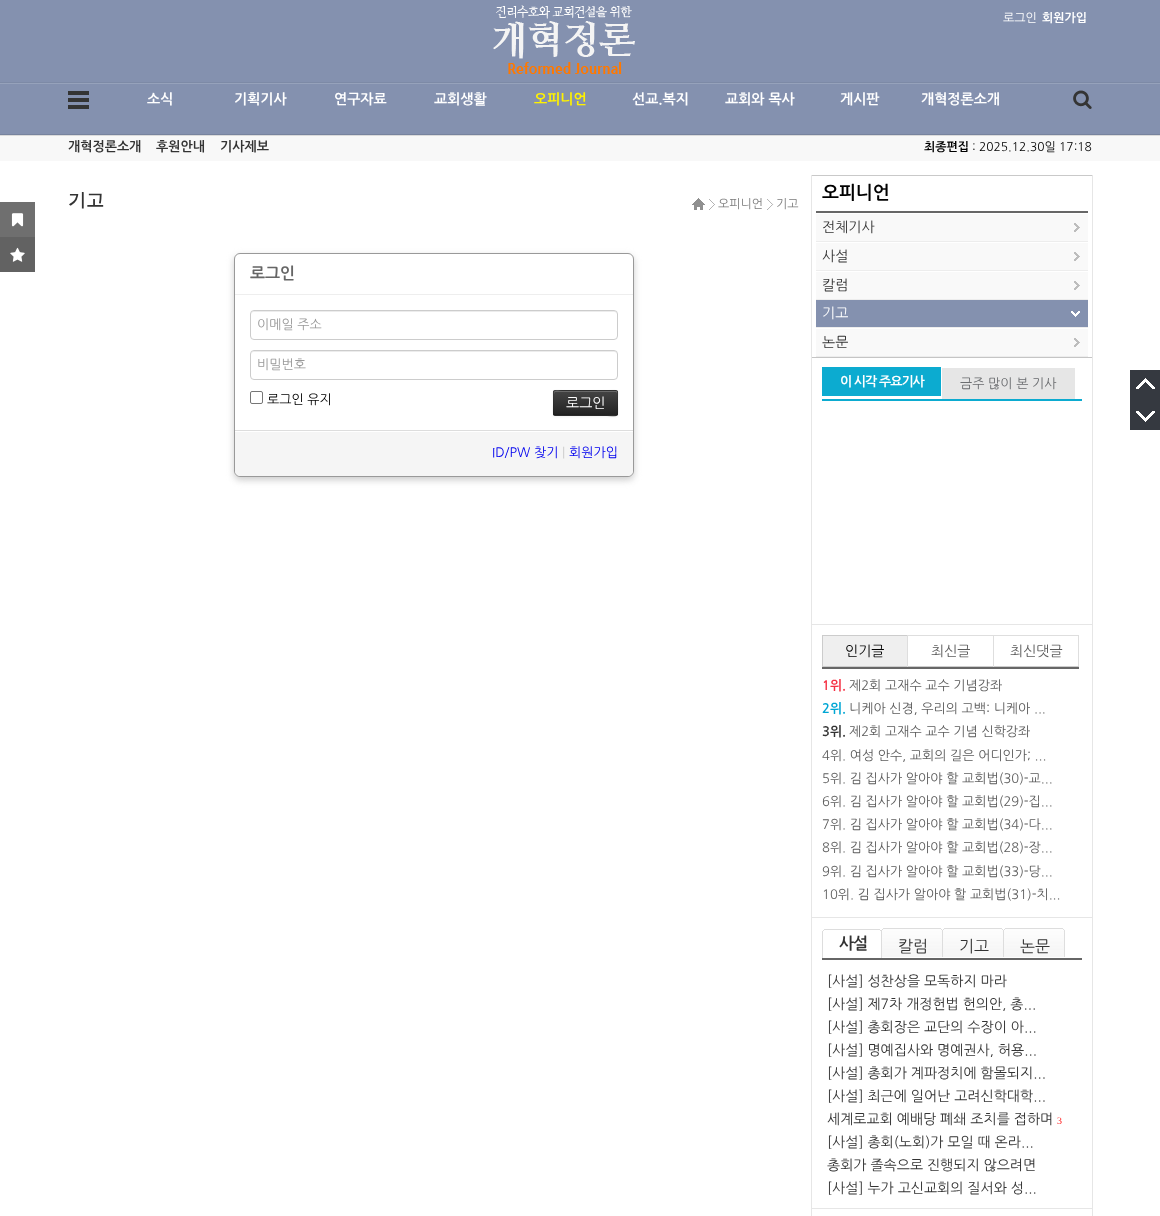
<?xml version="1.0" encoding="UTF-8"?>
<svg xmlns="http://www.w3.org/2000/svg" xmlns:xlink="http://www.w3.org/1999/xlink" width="1160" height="1216">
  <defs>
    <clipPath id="clip1"><rect x="553" y="390" width="65" height="26" rx="2" /></clipPath>
    <linearGradient id="g1" gradientUnits="userSpaceOnUse" x1="586" y1="391" x2="586" y2="415"><stop offset="0" stop-color="#444444" /><stop offset="1" stop-color="#222222" /></linearGradient>
  </defs>
  <rect width="100%" height="100%" fill="#ffffff" />
  <rect width="1160" height="134" fill="#8491af" />
  <image x="493" y="5" width="142" height="69" xlink:href="image1.png" />
  <image x="68" y="91" width="21" height="18" xlink:href="image2.png" />
  <image x="1073" y="90" width="19" height="19" xlink:href="image3.png" />
  <rect y="82" width="1160" height="1" fill="#7d8aa6" />
  <rect y="83" width="1160" height="1" fill="#96a2bb" />
  <rect y="134" width="1160" height="1" fill="#77839e" />
  <rect y="136" width="1160" height="25" fill="#f8f8f8" />
  <rect y="135" width="1160" height="1" fill="#dbdbdb" />
  <rect y="202" width="35" height="35" fill="#6f6f6f" />
  <image x="11" y="213" width="13" height="14" xlink:href="image4.png" />
  <rect y="237" width="35" height="35" fill="#626262" />
  <image x="10" y="247" width="15" height="15" xlink:href="image5.png" />
  <rect x="1092" y="175" width="1" height="1041" fill="#e6e6e6" />
  <image x="692" y="198" width="13" height="12" xlink:href="image6.png" />
  <image x="709" y="199" width="6" height="11" xlink:href="image7.png" />
  <image x="767" y="199" width="7" height="11" xlink:href="image8.png" />
  <rect x="234" y="256" width="400" height="224" rx="6" fill="#cccccc" filter="blur(3.5px)" />
  <rect x="234.5" y="253.5" width="399" height="223" rx="5.5" fill="#ffffff" stroke="#999999" />
  <rect x="235" y="294" width="398" height="1" fill="#eeeeee" />
  <path d="M 254 312 h 360 c 2 0 3 1 3 3 c 0 -2 -1 -4 -3 -4 h -360 l -2 1 l -1 3 c 0 -2 1 -3 3 -3 z" fill="#ececec" />
  <rect x="250.5" y="310.5" width="367" height="29" rx="3.5" fill="none" stroke="#cccccc" />
  <path d="M 254 352 h 360 c 2 0 3 1 3 3 c 0 -2 -1 -4 -3 -4 h -360 l -2 1 l -1 3 c 0 -2 1 -3 3 -3 z" fill="#ececec" />
  <rect x="250.5" y="350.5" width="367" height="29" rx="3.5" fill="none" stroke="#cccccc" />
  <rect x="250.5" y="391.5" width="12" height="12" rx="1.5" fill="none" stroke="#767676" />
  <rect x="553" y="391" width="65" height="26" rx="2" fill="#000000" fill-opacity="0.05" filter="blur(1px)" />
  <rect x="553" y="390" width="65" height="26" rx="2" fill="#363636" />
  <g clip-path="url(#clip1)">
    <rect x="553" y="391" width="65" height="24" fill="url(#g1)" />
  </g>
  <path d="M 555 392 h 61 l 1 1 v -2 h -52 c -8 0 -11 -3 -11 3 z" fill="#ffffff" fill-opacity="0.2" />
  <path d="M 617 415 c -2.5 2.5 -7.5 0.5 -11 0.5 l -52 -0.5" fill="none" stroke="#000000" stroke-opacity="0.25" />
  <path d="M 554 415 c -1.5 -1.5 -0.5 -10 -0.5 -12 c 0 -15 -3 -12.5 11.5 -12.5 h 41 c 14.5 0 11.5 -2.5 11.5 12.5 c 0 2 1 10.5 -0.5 12" fill="none" stroke="#000000" stroke-opacity="0.1" />
  <path d="M 235 430 h 398 v 40 c 0 3.5 -2.5 6 -6 6 h -386 c -3.5 0 -6 -2.5 -6 -6 z" fill="#f5f5f5" />
  <rect x="235" y="431" width="398" height="1" fill="#ffffff" />
  <rect x="235" y="430" width="398" height="1" fill="#dddddd" />
  <rect x="811" y="175" width="1" height="1041" fill="#e6e6e6" />
  <rect x="812" y="175" width="280" height="1" fill="#c9c9c9" />
  <rect x="812" y="357" width="280" height="1" fill="#c5c5c5" />
  <rect x="816" y="211" width="272" height="2" fill="#676767" />
  <rect x="816" y="241" width="272" height="1" fill="#ededed" />
  <rect x="816" y="214" width="272" height="27" fill="#f9f9f9" />
  <image x="1074" y="223" width="6" height="9" xlink:href="image9.png" />
  <rect x="816" y="270" width="272" height="1" fill="#ededed" />
  <rect x="816" y="243" width="272" height="27" fill="#f9f9f9" />
  <image x="1074" y="252" width="6" height="9" xlink:href="image9.png" />
  <rect x="816" y="299" width="272" height="1" fill="#ededed" />
  <rect x="816" y="272" width="272" height="27" fill="#f9f9f9" />
  <image x="1074" y="281" width="6" height="9" xlink:href="image9.png" />
  <rect x="816" y="327" width="272" height="1" fill="#ededed" />
  <rect x="816" y="300" width="272" height="27" fill="#8491af" />
  <image x="1071" y="311" width="9" height="6" xlink:href="image10.png" />
  <rect x="816" y="356" width="272" height="1" fill="#ededed" />
  <rect x="816" y="329" width="272" height="27" fill="#f9f9f9" />
  <image x="1074" y="338" width="6" height="9" xlink:href="image9.png" />
  <rect x="822" y="399" width="260" height="2" fill="#0cabd0" />
  <rect x="822" y="367" width="119" height="29" fill="#0cabd0" />
  <rect x="942" y="368" width="133" height="31" fill="#e6e6e6" />
  <rect x="812" y="624" width="280" height="1" fill="#e6e6e6" />
  <rect x="822" y="667" width="257" height="2" fill="#676767" />
  <rect x="822.5" y="635.5" width="85" height="31" fill="#efefef" stroke="#cccccc" />
  <rect x="907" y="635" width="172" height="1" fill="#dedede" />
  <rect x="907" y="666" width="87" height="1" fill="#cccccc" />
  <rect x="907" y="635" width="1" height="32" fill="#dedede" />
  <rect x="1078" y="635" width="1" height="32" fill="#dedede" />
  <rect x="993" y="666" width="86" height="1" fill="#cccccc" />
  <rect x="993" y="635" width="1" height="32" fill="#dedede" />
  <rect x="812" y="917" width="280" height="1" fill="#e6e6e6" />
  <rect x="822" y="958" width="260" height="2" fill="#666666" />
  <image x="822" y="929" width="58" height="29" xlink:href="image11.png" />
  <image x="881" y="928" width="60" height="29" xlink:href="image13.png" />
  <image x="880" y="930" width="2" height="28" xlink:href="image12.png" />
  <image x="941" y="929" width="1" height="28" xlink:href="image14.png" />
  <image x="942" y="928" width="60" height="29" xlink:href="image13.png" />
  <image x="1002" y="929" width="1" height="28" xlink:href="image14.png" />
  <image x="1003" y="928" width="60" height="29" xlink:href="image13.png" />
  <image x="1063" y="929" width="2" height="28" xlink:href="image15.png" />
  <rect x="812" y="1208" width="280" height="1" fill="#e6e6e6" />
  <rect x="1130" y="370" width="30" height="60" fill="#353940" />
  <image x="1136" y="378" width="19" height="11" xlink:href="image16.png" />
  <image x="1136" y="411" width="19" height="11" xlink:href="image17.png" />
  <text x="1003" y="22" style="font-family: NanumGothic; font-size: 12px; fill: #ffffff">로그인</text>
  <text x="1042" y="22" style="font-family: NanumGothic; font-size: 12px; font-weight: bold; fill: #ffffff">회원가입</text>
  <text x="147" y="104" style="font-family: NanumGothic; font-size: 14px; font-weight: bold; fill: #ffffff">소식</text>
  <text x="234" y="104" style="font-family: NanumGothic; font-size: 14px; font-weight: bold; fill: #ffffff">기획기사</text>
  <text x="334" y="104" style="font-family: NanumGothic; font-size: 14px; font-weight: bold; fill: #ffffff">연구자료</text>
  <text x="434" y="104" style="font-family: NanumGothic; font-size: 14px; font-weight: bold; fill: #ffffff">교회생활</text>
  <text x="534" y="104" style="font-family: NanumGothic; font-size: 14px; font-weight: bold; fill: #fff200">오피니언</text>
  <text x="632" y="104" style="font-family: NanumGothic; font-size: 14px; font-weight: bold; fill: #ffffff">선교.복지</text>
  <text x="725" y="104" style="font-family: NanumGothic; font-size: 14px; font-weight: bold; fill: #ffffff">교회와 목사</text>
  <text x="840" y="104" style="font-family: NanumGothic; font-size: 14px; font-weight: bold; fill: #ffffff">게시판</text>
  <text x="921" y="104" style="font-family: NanumGothic; font-size: 14px; font-weight: bold; fill: #ffffff">개혁정론소개</text>
  <text x="68" y="151" style="font-family: NanumGothic; font-size: 13px; font-weight: bold; fill: #333333">개혁정론소개</text>
  <text x="156" y="151" style="font-family: NanumGothic; font-size: 13px; font-weight: bold; fill: #333333">후원안내</text>
  <text x="220" y="151" style="font-family: NanumGothic; font-size: 13px; font-weight: bold; fill: #333333">기사제보</text>
  <text x="924" y="151" style="font-family: NanumGothic; font-size: 12px; font-weight: bold; fill: #000000">최종편집</text>
  <text x="972" y="151" style="font-family: NanumGothic; font-size: 12px; fill: #000000">: 2025.12.30일 17:18</text>
  <text x="68" y="206" style="font-family: WenQuanYi Zen Hei; font-size: 18px; font-weight: bold; fill: #333333">기고</text>
  <text x="718" y="208" style="font-family: NanumGothic; font-size: 12px; fill: #7c7c7c">오피니언</text>
  <text x="776" y="208" style="font-family: NanumGothic; font-size: 12px; fill: #7c7c7c">기고</text>
  <text x="250" y="279" style="font-family: NanumGothic; font-size: 16px; font-weight: bold; fill: #666666">로그인</text>
  <text x="257" y="329" style="font-family: NanumGothic; font-size: 13px; fill: #999999">이메일 주소</text>
  <text x="257" y="369" style="font-family: NanumGothic; font-size: 13px; fill: #999999">비밀번호</text>
  <text x="267" y="404" style="font-family: NanumGothic; font-size: 13px; fill: #000000">로그인 유지</text>
  <text x="566" y="408" style="font-family: NanumGothic; font-size: 14px; fill: #ffffff">로그인</text>
  <text x="492" y="457" style="font-family: NanumGothic; font-size: 13px; fill: #0000ee">ID/PW 찾기</text>
  <text x="562" y="457" style="font-family: NanumGothic; font-size: 13px; fill: #cccccc">|</text>
  <text x="569" y="457" style="font-family: NanumGothic; font-size: 13px; fill: #0000ee">회원가입</text>
  <text x="822" y="199" style="font-family: NanumGothic; font-size: 18px; font-weight: bold; fill: #000000">오피니언</text>
  <text x="822" y="232" style="font-family: NanumGothic; font-size: 14px; fill: #333333">전체기사</text>
  <text x="822" y="261" style="font-family: NanumGothic; font-size: 14px; fill: #333333">사설</text>
  <text x="822" y="290" style="font-family: NanumGothic; font-size: 14px; fill: #333333">칼럼</text>
  <text x="822" y="318" style="font-family: NanumGothic; font-size: 14px; fill: #ffffff">기고</text>
  <text x="822" y="347" style="font-family: NanumGothic; font-size: 14px; fill: #333333">논문</text>
  <text x="840" y="386" style="font-family: NanumGothic; font-size: 13px; font-weight: bold; letter-spacing: -1px; fill: #ffffff">이 시각 주요기사</text>
  <text x="960" y="388" style="font-family: NanumGothic; font-size: 13px; fill: #6b6d70">금주 많이 본 기사</text>
  <text x="845" y="656" style="font-family: NanumGothic; font-size: 14px; fill: #000000">인기글</text>
  <text x="931" y="656" style="font-family: NanumGothic; font-size: 14px; fill: #5c5c5c">최신글</text>
  <text x="1010" y="656" style="font-family: NanumGothic; font-size: 14px; fill: #5c5c5c">최신댓글</text>
  <text x="822" y="690" style="font-family: NanumGothic; font-size: 13px; font-weight: bold; fill: #f53144">1위.</text>
  <text x="849" y="690" style="font-family: NanumGothic; font-size: 13px; fill: #5c5c5c">제2회 고재수 교수 기념강좌</text>
  <text x="822" y="713" style="font-family: NanumGothic; font-size: 13px; font-weight: bold; fill: #00a6d4">2위.</text>
  <text x="849" y="713" style="font-family: NanumGothic; font-size: 13px; fill: #5c5c5c">니케아 신경, 우리의 고백: 니케아 ...</text>
  <text x="822" y="736" style="font-family: NanumGothic; font-size: 13px; font-weight: bold; fill: #333333">3위.</text>
  <text x="849" y="736" style="font-family: NanumGothic; font-size: 13px; fill: #5c5c5c">제2회 고재수 교수 기념 신학강좌</text>
  <text x="822" y="760" style="font-family: NanumGothic; font-size: 13px; fill: #5c5c5c">4위. 여성 안수, 교회의 길은 어디인가; ...</text>
  <text x="822" y="783" style="font-family: NanumGothic; font-size: 13px; fill: #5c5c5c">5위. 김 집사가 알아야 할 교회법(30)-교...</text>
  <text x="822" y="806" style="font-family: NanumGothic; font-size: 13px; fill: #5c5c5c">6위. 김 집사가 알아야 할 교회법(29)-집...</text>
  <text x="822" y="829" style="font-family: NanumGothic; font-size: 13px; fill: #5c5c5c">7위. 김 집사가 알아야 할 교회법(34)-다...</text>
  <text x="822" y="852" style="font-family: NanumGothic; font-size: 13px; fill: #5c5c5c">8위. 김 집사가 알아야 할 교회법(28)-장...</text>
  <text x="822" y="876" style="font-family: NanumGothic; font-size: 13px; fill: #5c5c5c">9위. 김 집사가 알아야 할 교회법(33)-당...</text>
  <text x="822" y="899" style="font-family: NanumGothic; font-size: 13px; fill: #5c5c5c">10위. 김 집사가 알아야 할 교회법(31)-치...</text>
  <text x="839" y="949" style="font-family: NanumGothic; font-size: 16px; font-weight: bold; letter-spacing: -1px; fill: #333333">사설</text>
  <text x="898" y="952" style="font-family: NanumGothic; font-size: 16px; fill: #333333">칼럼</text>
  <text x="959" y="952" style="font-family: NanumGothic; font-size: 16px; fill: #333333">기고</text>
  <text x="1020" y="952" style="font-family: NanumGothic; font-size: 16px; fill: #333333">논문</text>
  <text x="827" y="986" style="font-family: NanumGothic; font-size: 14px; fill: #333333">[사설] 성찬상을 모독하지 마라</text>
  <text x="827" y="1009" style="font-family: NanumGothic; font-size: 14px; fill: #333333">[사설] 제7차 개정헌법 헌의안, 총...</text>
  <text x="827" y="1032" style="font-family: NanumGothic; font-size: 14px; fill: #333333">[사설] 총회장은 교단의 수장이 아...</text>
  <text x="827" y="1055" style="font-family: NanumGothic; font-size: 14px; fill: #333333">[사설] 명예집사와 명예권사, 허용...</text>
  <text x="827" y="1078" style="font-family: NanumGothic; font-size: 14px; fill: #333333">[사설] 총회가 계파정치에 함몰되지...</text>
  <text x="827" y="1101" style="font-family: NanumGothic; font-size: 14px; fill: #333333">[사설] 최근에 일어난 고려신학대학...</text>
  <text x="827" y="1124" style="font-family: NanumGothic; font-size: 14px; fill: #333333">세계로교회 예배당 폐쇄 조치를 접하며</text>
  <text x="1057" y="1124" style="font-family: Liberation Serif; font-size: 10px; fill: #ff1a1a">3</text>
  <text x="827" y="1147" style="font-family: NanumGothic; font-size: 14px; fill: #333333">[사설] 총회(노회)가 모일 때 온라...</text>
  <text x="827" y="1170" style="font-family: NanumGothic; font-size: 14px; fill: #333333">총회가 졸속으로 진행되지 않으려면</text>
  <text x="827" y="1193" style="font-family: NanumGothic; font-size: 14px; fill: #333333">[사설] 누가 고신교회의 질서와 성...</text>
</svg>
